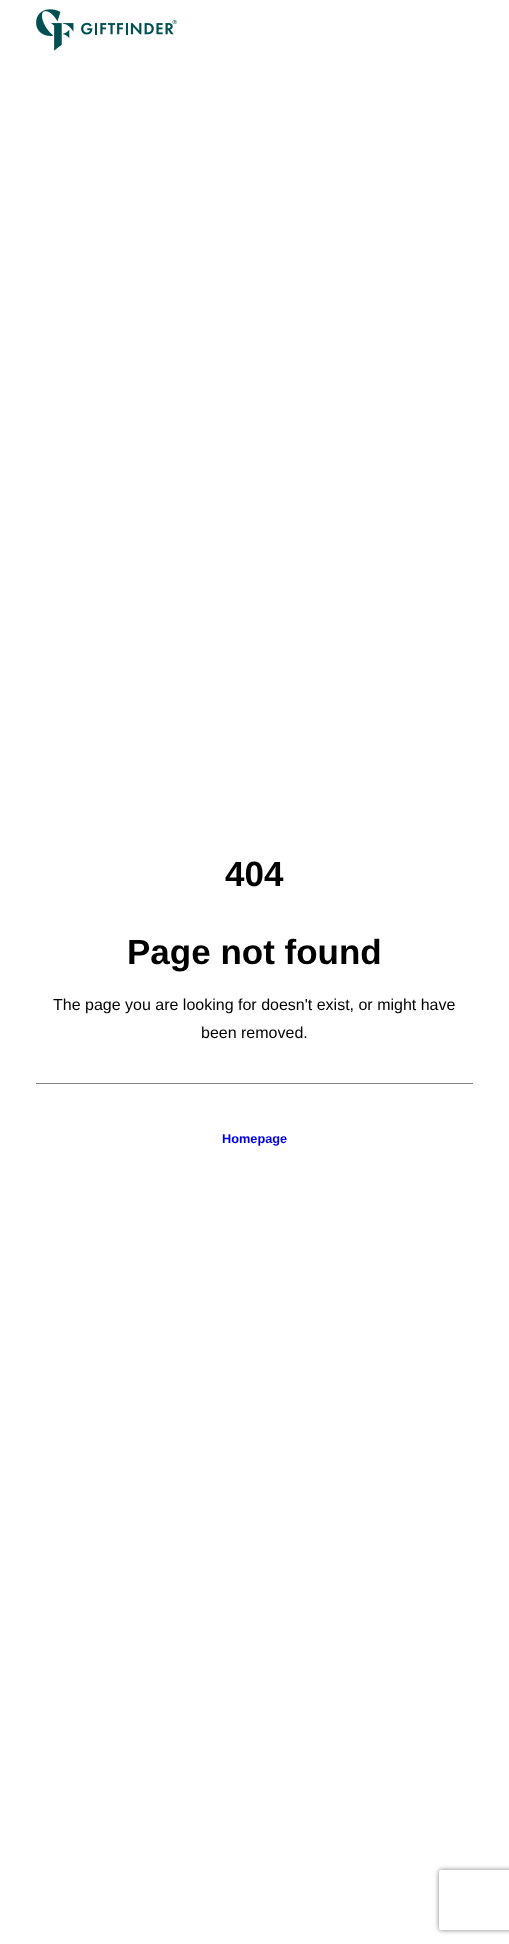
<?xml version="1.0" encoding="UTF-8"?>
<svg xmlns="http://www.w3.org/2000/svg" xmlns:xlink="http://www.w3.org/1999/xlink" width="509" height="1944">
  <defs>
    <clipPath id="clip1"><path d="M 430 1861 h 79 v 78 h -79 z m 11 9 h 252 c 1 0 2 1 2 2 v 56 c 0 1 -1 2 -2 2 h -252 c -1 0 -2 -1 -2 -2 v -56 c 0 -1 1 -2 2 -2 z" clip-rule="evenodd" /></clipPath>
  </defs>
  <rect width="100%" height="100%" fill="#ffffff" />
  <image x="36" y="9" width="141" height="42" xlink:href="image1.png" />
  <rect x="36" y="1083" width="437" height="1" fill="#808080" />
  <g clip-path="url(#clip1)">
    <rect x="439" y="1870" width="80" height="60" rx="2" fill="#808080" filter="blur(2.5px)" />
  </g>
  <text x="225" y="886" style="font-family: Liberation Sans; font-size: 35px; font-weight: bold; fill: #000000">404</text>
  <text x="127" y="964" style="font-family: Liberation Sans; font-size: 35px; font-weight: bold; fill: #000000">Page not found</text>
  <text x="53" y="1010" style="font-family: Liberation Sans; font-size: 16px; fill: #000000">The page you are looking for doesn't exist, or might have</text>
  <text x="201" y="1038" style="font-family: Liberation Sans; font-size: 16px; fill: #000000">been removed.</text>
  <text x="222" y="1143" style="font-family: Liberation Sans; font-size: 12.75px; font-weight: bold; fill: #0000ee">Homepage</text>
</svg>
